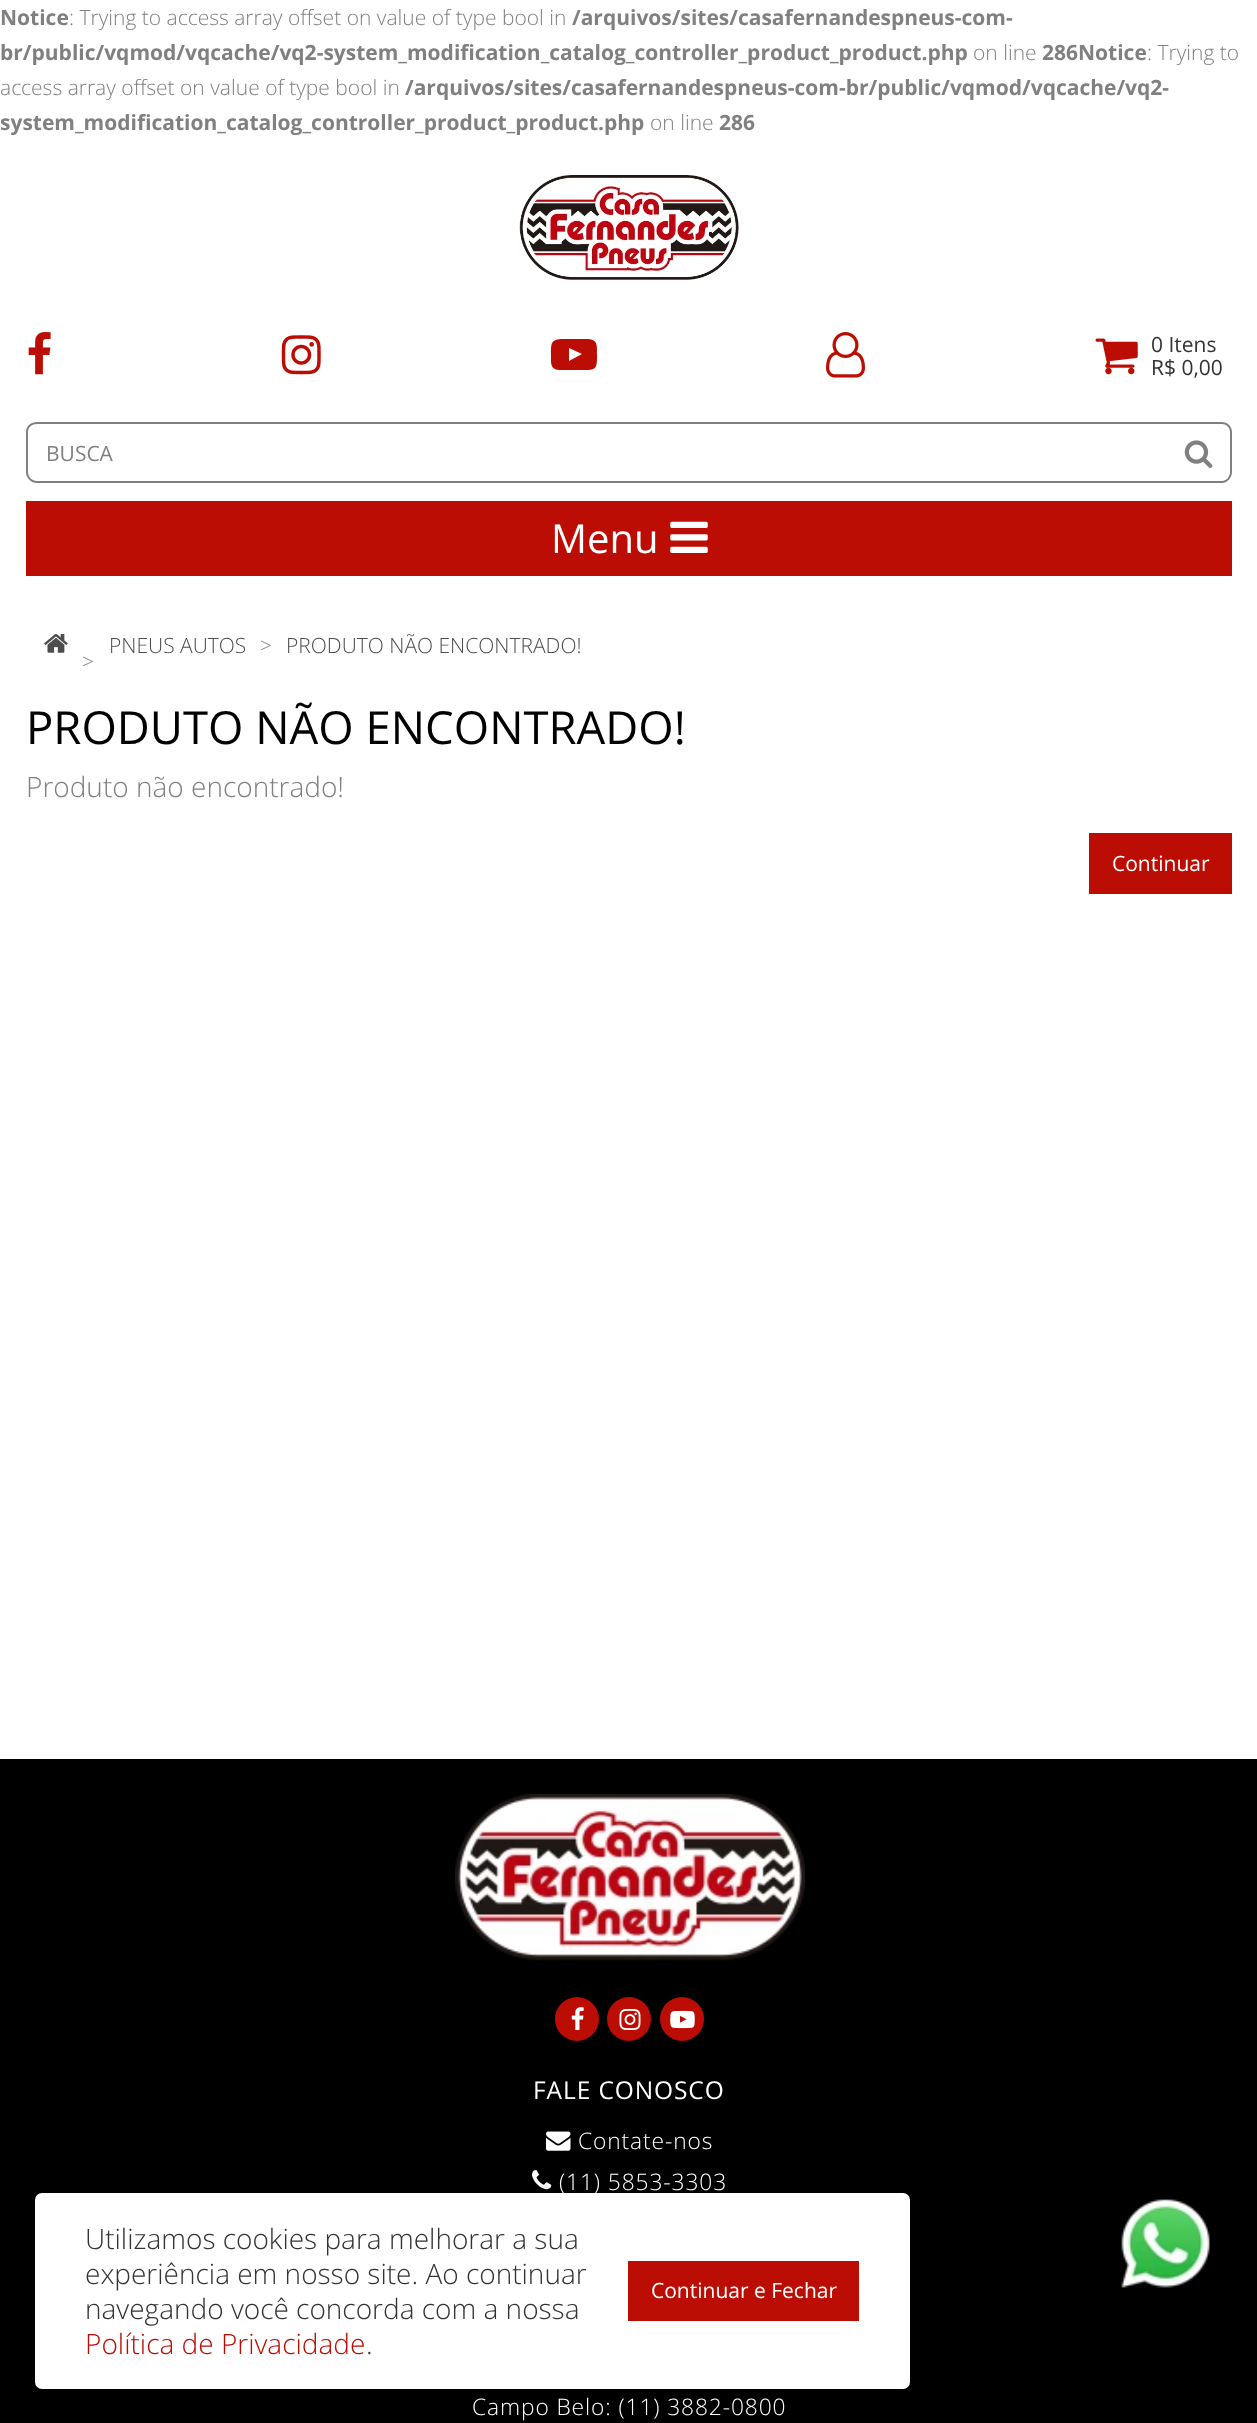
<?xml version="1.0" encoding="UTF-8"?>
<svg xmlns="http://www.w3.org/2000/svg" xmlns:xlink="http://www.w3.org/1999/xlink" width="1257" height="2423">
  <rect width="100%" height="100%" fill="#ffffff" />
  <image x="519" y="175" width="220" height="105" xlink:href="image1.png" />
  <image x="28" y="332" width="23" height="43" xlink:href="image2.png" />
  <image x="281" y="335" width="40" height="40" xlink:href="image3.png" />
  <path d="M 569 361 l 13 -7 l -13 -6 z m 5 -22 h 14 c 10 1 9 6 9 16 c 0 11 0 15 -10 15 h -26 c -11 0 -10 -6 -10 -15 c 0 -12 0 -15 10 -16 z" fill="#bb0d03" />
  <image x="826" y="332" width="39" height="46" xlink:href="image4.png" />
  <image x="1095" y="338" width="43" height="37" xlink:href="image5.png" />
  <path d="M 37 422 h 1130 v 61 h -1130 c -6 0 -11 -5 -11 -11 v -40 c 0 -6 5 -10 11 -10 z m 0 2 h 1130 v 57 h -1130 c -5 0 -9 -4 -9 -9 v -40 c 0 -5 4 -8 9 -8 z" fill="#808080" fill-rule="evenodd" />
  <path d="M 1167 422 h 55 c 5 0 10 4 10 10 v 40 c 0 6 -5 11 -10 11 h -55 z m 0 2 h 55 c 4 0 8 3 8 8 v 40 c 0 5 -4 9 -8 9 h -55 z" fill="#808080" fill-rule="evenodd" />
  <image x="1184" y="440" width="29" height="28" xlink:href="image6.png" />
  <rect x="26" y="501" width="1206" height="75" fill="#bb0d03" />
  <image x="670" y="521" width="38" height="32" xlink:href="image7.png" />
  <image x="44" y="634" width="24" height="19" xlink:href="image8.png" />
  <rect x="1089" y="833" width="143" height="61" fill="#bb0d03" />
  <rect y="1759" width="1257" height="664" fill="#000000" />
  <image x="455" y="1793" width="350" height="168" xlink:href="image9.png" />
  <circle cx="577" cy="2019" r="22" fill="#bb0d03" />
  <image x="571" y="2007" width="13" height="23" xlink:href="image10.png" />
  <circle cx="629" cy="2019" r="22" fill="#bb0d03" />
  <image x="619" y="2009" width="22" height="21" xlink:href="image11.png" />
  <circle cx="682" cy="2019" r="22" fill="#bb0d03" />
  <image x="670" y="2010" width="25" height="19" xlink:href="image12.png" />
  <image x="546" y="2131" width="25" height="20" xlink:href="image13.png" />
  <image x="532" y="2170" width="20" height="20" xlink:href="image14.png" />
  <image x="1121" y="2199" width="89" height="89" xlink:href="image15.png" />
  <rect x="35" y="2193" width="875" height="196" rx="7" fill="#000000" fill-opacity="0.4" filter="blur(5px)" />
  <rect x="35" y="2193" width="875" height="196" rx="7" fill="#ffffff" />
  <rect x="628" y="2261" width="231" height="60" fill="#bb0d03" />
  <text x="0" y="25" style="font-family: Open Sans; font-size: 21px; font-weight: bold; fill: #808080">Notice</text>
  <text x="69" y="25" style="font-family: Open Sans; font-size: 21px; font-weight: 300; fill: #808080">: Trying to access array offset on value of type bool in</text>
  <text x="572" y="25" style="font-family: Open Sans; font-size: 21px; font-weight: bold; fill: #808080">/arquivos/sites/casafernandespneus-com-</text>
  <text x="0" y="60" style="font-family: Open Sans; font-size: 21px; font-weight: bold; fill: #808080">br/public/vqmod/vqcache/vq2-system_modification_catalog_controller_product_product.php</text>
  <text x="973" y="60" style="font-family: Open Sans; font-size: 21px; font-weight: 300; fill: #808080">on line</text>
  <text x="1042" y="60" style="font-family: Open Sans; font-size: 21px; font-weight: bold; fill: #808080">286Notice</text>
  <text x="1147" y="60" style="font-family: Open Sans; font-size: 21px; font-weight: 300; fill: #808080">: Trying to</text>
  <text x="0" y="95" style="font-family: Open Sans; font-size: 21px; font-weight: 300; fill: #808080">access array offset on value of type bool in</text>
  <text x="405" y="95" style="font-family: Open Sans; font-size: 21px; font-weight: bold; fill: #808080">/arquivos/sites/casafernandespneus-com-br/public/vqmod/vqcache/vq2-</text>
  <text x="0" y="130" style="font-family: Open Sans; font-size: 21px; font-weight: bold; fill: #808080">system_modification_catalog_controller_product_product.php</text>
  <text x="650" y="130" style="font-family: Open Sans; font-size: 21px; font-weight: 300; fill: #808080">on line</text>
  <text x="719" y="130" style="font-family: Open Sans; font-size: 21px; font-weight: bold; fill: #808080">286</text>
  <text x="1151" y="352" style="font-family: Open Sans; font-size: 21px; fill: #333333">0 Itens</text>
  <text x="1151" y="375" style="font-family: Open Sans; font-size: 21px; fill: #333333">R$ 0,00</text>
  <text x="46" y="461" style="font-family: Open Sans; font-size: 21px; fill: #808080">BUSCA</text>
  <text x="551" y="553" style="font-family: Open Sans; font-size: 40px; fill: #ffffff">Menu</text>
  <text x="109" y="653" style="font-family: Open Sans; font-size: 21px; font-weight: 300; fill: #4d4d4d">PNEUS AUTOS</text>
  <text x="260" y="653" style="font-family: Open Sans; font-size: 21px; font-weight: 300; fill: #808080">&gt;</text>
  <text x="286" y="653" style="font-family: Open Sans; font-size: 21px; font-weight: 300; fill: #4d4d4d">PRODUTO NÃO ENCONTRADO!</text>
  <text x="82" y="669" style="font-family: Open Sans; font-size: 21px; font-weight: 300; fill: #808080">&gt;</text>
  <text x="26" y="744" style="font-family: Open Sans; font-size: 45.5px; fill: #000000">PRODUTO NÃO ENCONTRADO!</text>
  <text x="26" y="797" style="font-family: Open Sans; font-size: 28px; font-weight: 300; fill: #808080">Produto não encontrado!</text>
  <text x="1112" y="871" style="font-family: Open Sans; font-size: 21px; fill: #ffffff">Continuar</text>
  <text x="533" y="2099" style="font-family: Open Sans; font-size: 24.5px; letter-spacing: 0.9px; fill: #ffffff">FALE CONOSCO</text>
  <text x="578" y="2149" style="font-family: Open Sans; font-size: 22.75px; font-weight: 300; letter-spacing: 0.9px; fill: #ffffff">Contate-nos</text>
  <text x="559" y="2190" style="font-family: Open Sans; font-size: 22.75px; font-weight: 300; letter-spacing: 0.9px; fill: #ffffff">(11) 5853-3303</text>
  <text x="472" y="2415" style="font-family: Open Sans; font-size: 22.75px; font-weight: 300; letter-spacing: 0.9px; fill: #ffffff">Campo Belo: (11) 3882-0800</text>
  <text x="85" y="2249" style="font-family: Open Sans; font-size: 28px; font-weight: 300; fill: #333333">Utilizamos cookies para melhorar a sua</text>
  <text x="85" y="2284" style="font-family: Open Sans; font-size: 28px; font-weight: 300; fill: #333333">experiência em nosso site. Ao continuar</text>
  <text x="85" y="2319" style="font-family: Open Sans; font-size: 28px; font-weight: 300; fill: #333333">navegando você concorda com a nossa</text>
  <text x="85" y="2354" style="font-family: Open Sans; font-size: 28px; font-weight: 300; fill: #bb0d03">Política de Privacidade</text>
  <text x="366" y="2354" style="font-family: Open Sans; font-size: 28px; font-weight: 300; fill: #333333">.</text>
  <text x="651" y="2298" style="font-family: Open Sans; font-size: 21px; fill: #ffffff">Continuar e Fechar</text>
</svg>
